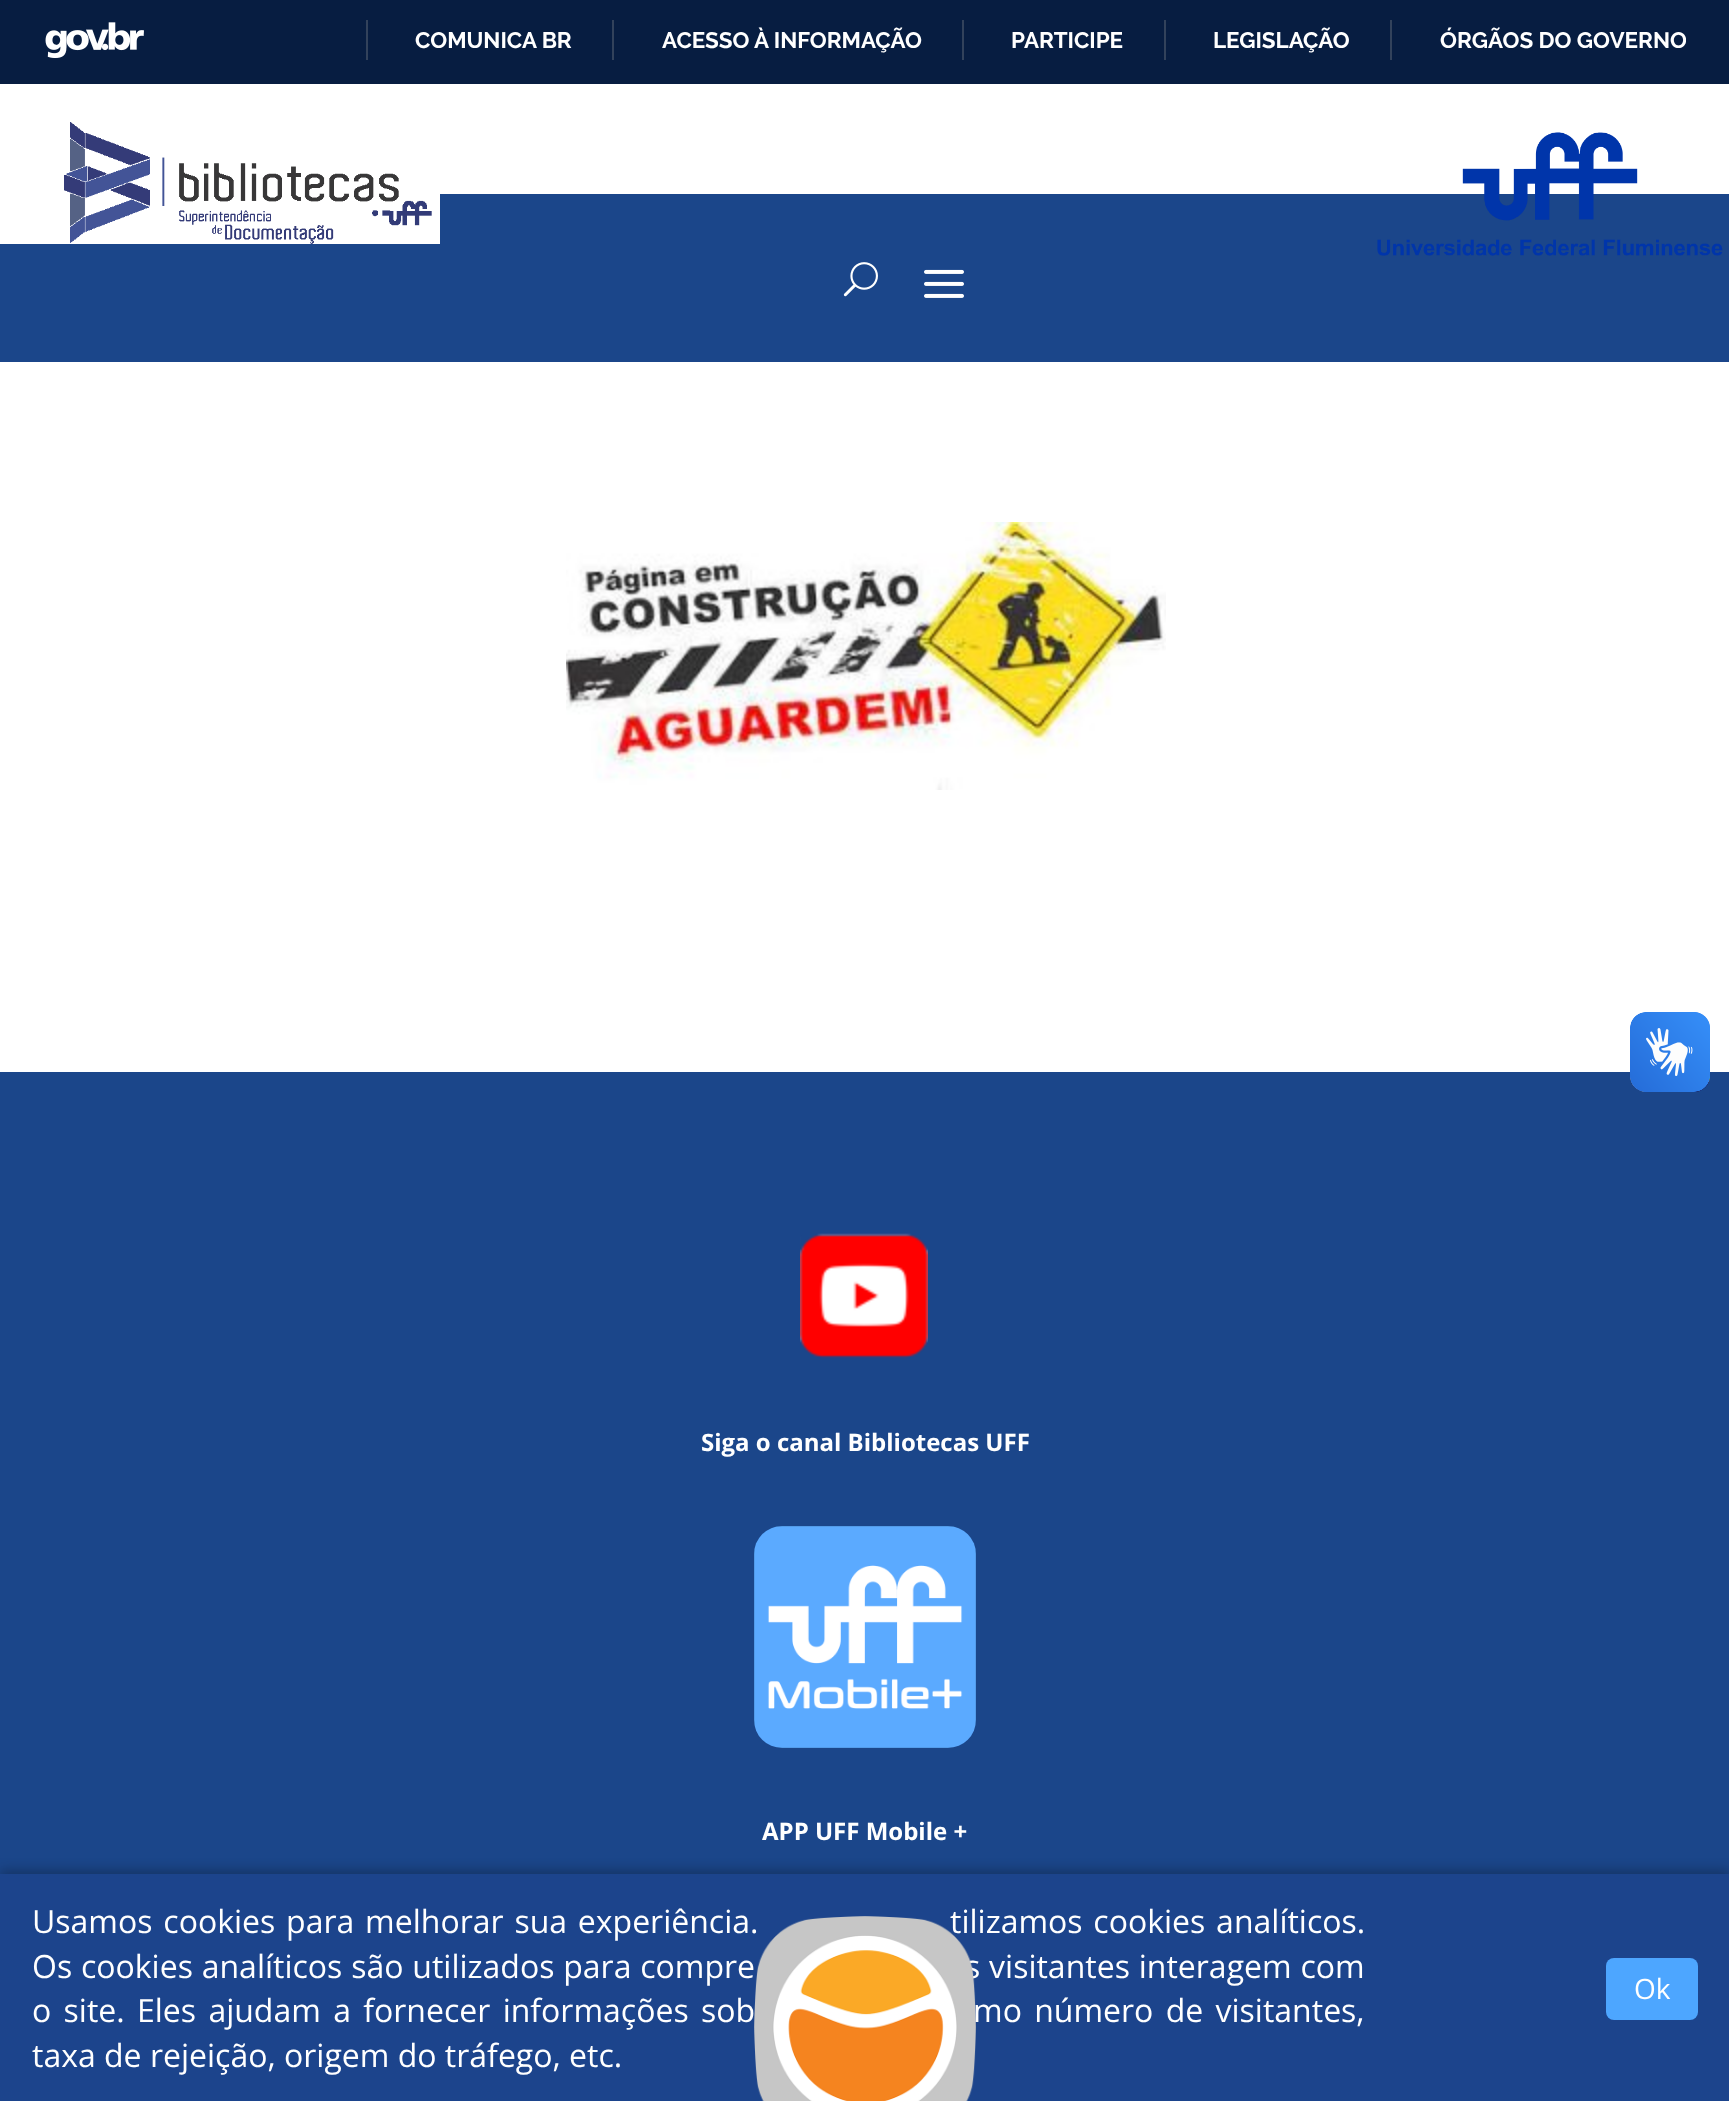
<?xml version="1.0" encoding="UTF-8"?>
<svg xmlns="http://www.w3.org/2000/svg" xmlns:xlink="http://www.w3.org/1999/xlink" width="1729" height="2101">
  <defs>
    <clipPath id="clip1"><rect x="326" y="14" width="1360" height="52" /></clipPath>
  </defs>
  <rect width="100%" height="100%" fill="#ffffff" />
  <rect width="1729" height="84" fill="#071d41" />
  <image x="45" y="22" width="99" height="36" xlink:href="image1.png" />
  <rect x="366" y="20" width="2" height="40" fill="#32425b" />
  <rect x="612" y="20" width="2" height="40" fill="#32425b" />
  <rect x="962" y="20" width="2" height="40" fill="#32425b" />
  <rect x="1164" y="20" width="2" height="40" fill="#32425b" />
  <rect x="1390" y="20" width="2" height="40" fill="#32425b" />
  <rect y="1072" width="1729" height="802" fill="#1b468a" />
  <image x="1630" y="1012" width="80" height="80" xlink:href="image2.png" />
  <image x="1630" y="1012" width="80" height="80" xlink:href="image3.png" />
  <rect y="194" width="1729" height="168" fill="#1b468a" />
  <image x="0" y="122" width="440" height="122" xlink:href="image4.png" />
  <image x="1377" y="132" width="346" height="124" xlink:href="image5.png" />
  <image x="843" y="262" width="35" height="35" xlink:href="image6.png" />
  <image x="924" y="269" width="40" height="29" xlink:href="image7.png" />
  <image x="566" y="522" width="600" height="268" xlink:href="image8.png" />
  <image x="800" y="1233" width="128" height="126" xlink:href="image9.png" />
  <image x="754" y="1526" width="222" height="222" xlink:href="image10.png" />
  <rect y="1870" width="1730" height="228" fill="#000000" fill-opacity="0.25" filter="blur(6px)" />
  <rect y="1874" width="1729" height="227" fill="#1c448c" />
  <rect x="1606" y="1958" width="92" height="62" rx="8" fill="#4da6ff" />
  <text x="415" y="48" style="font-family: Raleway; font-size: 22.4px; font-weight: bold; fill: #ffffff">COMUNICA BR</text>
  <text x="662" y="48" style="font-family: Raleway; font-size: 22.4px; font-weight: bold; fill: #ffffff">ACESSO À INFORMAÇÃO</text>
  <text x="1011" y="48" style="font-family: Raleway; font-size: 22.4px; font-weight: bold; fill: #ffffff">PARTICIPE</text>
  <text x="1213" y="48" style="font-family: Raleway; font-size: 22.4px; font-weight: bold; fill: #ffffff">LEGISLAÇÃO</text>
  <g clip-path="url(#clip1)">
    <text x="1440" y="48" style="font-family: Raleway; font-size: 22.4px; font-weight: bold; fill: #ffffff">ÓRGÃOS DO GOVERNO</text>
  </g>
  <text x="701" y="1451" style="font-family: Open Sans; font-size: 24px; font-weight: bold; fill: #ffffff">Siga o canal Bibliotecas UFF</text>
  <text x="762" y="1840" style="font-family: Open Sans; font-size: 24px; font-weight: bold; fill: #ffffff">APP UFF Mobile +</text>
  <text x="32" y="1933" word-spacing="2.5" style="font-family: Open Sans; font-size: 32px; fill: #ffffff">Usamos cookies para melhorar sua experiência.</text>
  <text x="950" y="1933" word-spacing="2.5" style="font-family: Open Sans; font-size: 32px; fill: #ffffff">tilizamos cookies analíticos.</text>
  <text x="32" y="1978" word-spacing="0.5" style="font-family: Open Sans; font-size: 32px; fill: #ffffff">Os cookies analíticos são utilizados para compre</text>
  <text x="965" y="1978" word-spacing="0.5" style="font-family: Open Sans; font-size: 32px; fill: #ffffff">s visitantes interagem com</text>
  <image x="754" y="1916" width="222" height="185" xlink:href="image11.png" />
  <text x="32" y="2022" word-spacing="4" style="font-family: Open Sans; font-size: 32px; fill: #ffffff">o site. Eles ajudam a fornecer informações sob</text>
  <text x="973" y="2022" word-spacing="4" style="font-family: Open Sans; font-size: 32px; fill: #ffffff">mo número de visitantes,</text>
  <text x="32" y="2067" style="font-family: Open Sans; font-size: 32px; fill: #ffffff">taxa de rejeição, origem do tráfego, etc.</text>
  <text x="1634" y="1999" style="font-family: Open Sans; font-size: 28px; fill: #ffffff">Ok</text>
</svg>
